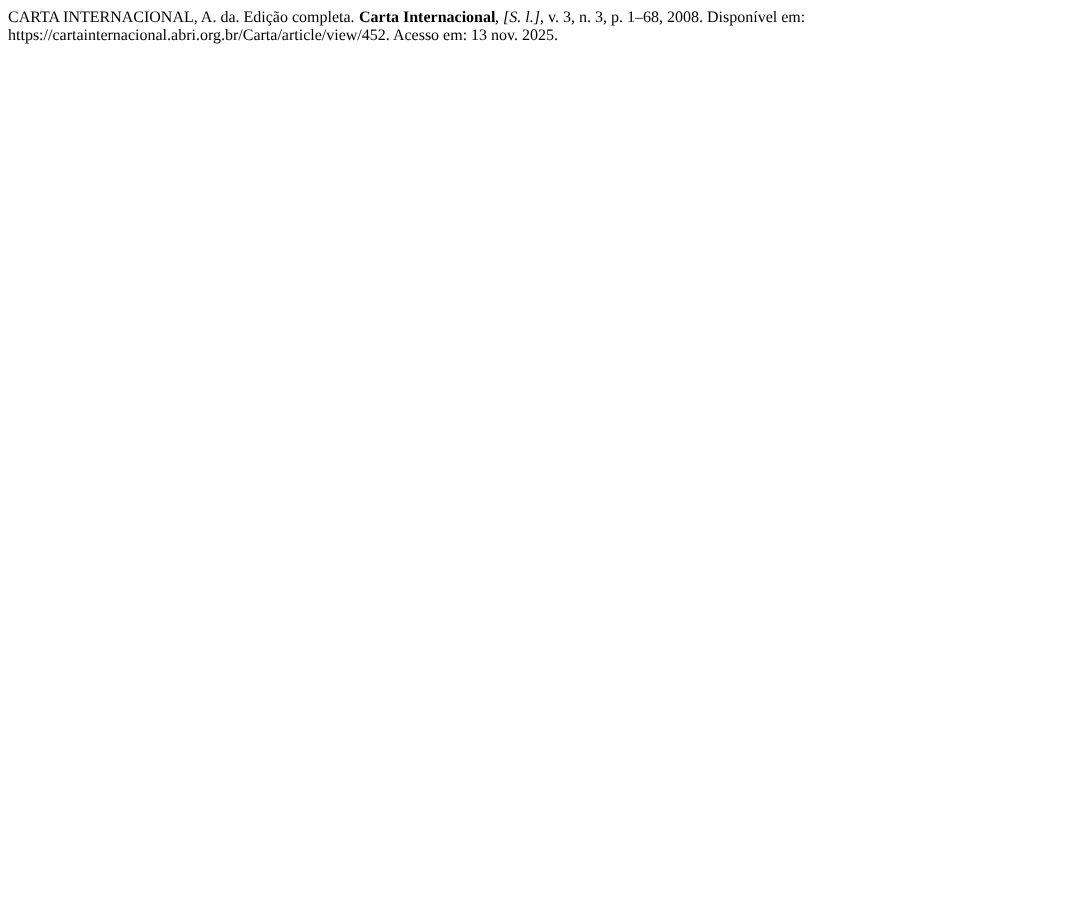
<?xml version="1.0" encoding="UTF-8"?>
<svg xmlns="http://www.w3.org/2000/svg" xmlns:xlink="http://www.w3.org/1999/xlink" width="1092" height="898">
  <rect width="100%" height="100%" fill="#ffffff" />
  <text x="8" y="22" style="font-family: Liberation Serif; font-size: 16px; fill: #000000">CARTA INTERNACIONAL, A. da. Edição completa.</text>
  <text x="359" y="22" style="font-family: Liberation Serif; font-size: 16px; font-weight: bold; fill: #000000">Carta Internacional</text>
  <text x="495" y="22" style="font-family: Liberation Serif; font-size: 16px; fill: #000000">,</text>
  <text x="503" y="22" style="font-family: Liberation Serif; font-size: 16px; font-style: italic; fill: #000000">[S. l.]</text>
  <text x="540" y="22" style="font-family: Liberation Serif; font-size: 16px; fill: #000000">, v. 3, n. 3, p. 1–68, 2008. Disponível em:</text>
  <text x="8" y="40" style="font-family: Liberation Serif; font-size: 16px; fill: #000000">https://cartainternacional.abri.org.br/Carta/article/view/452. Acesso em: 13 nov. 2025.</text>
</svg>
